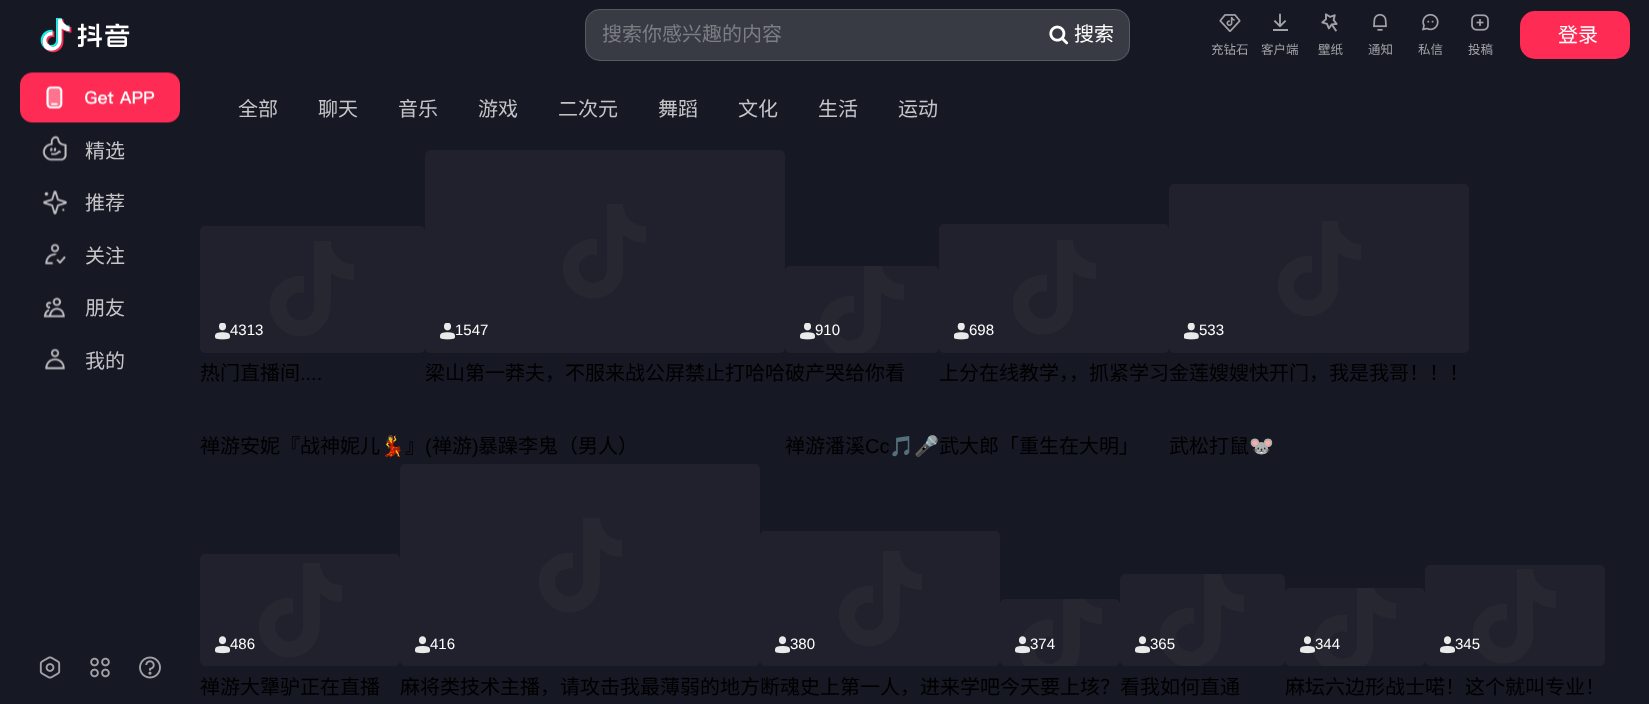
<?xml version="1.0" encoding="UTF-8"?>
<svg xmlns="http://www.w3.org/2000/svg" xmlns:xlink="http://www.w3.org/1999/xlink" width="1649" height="704">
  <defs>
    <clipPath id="clip1"><rect x="270" y="241" width="84" height="95" /></clipPath>
    <clipPath id="clip2"><rect x="563" y="204" width="83" height="95" /></clipPath>
    <clipPath id="clip3"><rect x="820" y="266" width="84" height="90" /></clipPath>
    <clipPath id="clip4"><rect x="1013" y="240" width="83" height="95" /></clipPath>
    <clipPath id="clip5"><rect x="1278" y="221" width="83" height="95" /></clipPath>
    <clipPath id="clip6"><rect x="259" y="563" width="84" height="95" /></clipPath>
    <clipPath id="clip7"><rect x="539" y="518" width="84" height="95" /></clipPath>
    <clipPath id="clip8"><rect x="839" y="551" width="84" height="95" /></clipPath>
    <clipPath id="clip9"><rect x="1160" y="574" width="84" height="94" /></clipPath>
    <clipPath id="clip10"><rect x="1313" y="588" width="83" height="87" /></clipPath>
    <clipPath id="clip11"><rect x="1473" y="569" width="83" height="95" /></clipPath>
    <clipPath id="clip12"><rect x="603" y="18" width="410" height="30" /></clipPath>
  </defs>
  <rect width="100%" height="100%" fill="#161823" />
  <image x="40" y="18" width="90" height="35" xlink:href="image1.png" />
  <image x="20" y="72" width="160" height="51" xlink:href="image2.png" />
  <image x="42" y="135" width="25" height="27" xlink:href="image3.png" />
  <image x="43" y="190" width="24" height="25" xlink:href="image4.png" />
  <image x="45" y="243" width="21" height="22" xlink:href="image5.png" />
  <image x="43" y="297" width="22" height="21" xlink:href="image6.png" />
  <image x="45" y="348" width="20" height="22" xlink:href="image7.png" />
  <image x="39" y="656" width="22" height="23" xlink:href="image8.png" />
  <image x="90" y="657" width="20" height="21" xlink:href="image9.png" />
  <image x="139" y="656" width="22" height="23" xlink:href="image10.png" />
  <rect x="585" y="9" width="545" height="52" rx="15" fill="#393b44" />
  <rect x="585.5" y="9.5" width="544" height="51" rx="14.5" fill="none" stroke="#ffffff" stroke-opacity="0.16" />
  <image x="1049" y="25" width="20" height="20" xlink:href="image11.png" />
  <rect x="1520" y="11" width="110" height="48" rx="15" fill="#fe2c55" />
  <image x="1219" y="14" width="22" height="18" xlink:href="image12.png" />
  <image x="1273" y="13" width="15" height="18" xlink:href="image13.png" />
  <image x="1321" y="13" width="17" height="19" xlink:href="image14.png" />
  <image x="1373" y="13" width="14" height="18" xlink:href="image15.png" />
  <image x="1422" y="13" width="17" height="18" xlink:href="image16.png" />
  <image x="1471" y="14" width="18" height="17" xlink:href="image17.png" />
  <rect x="200" y="226" width="225" height="127" rx="5" fill="#20212c" />
  <g clip-path="url(#clip1)">
    <path d="M 341 260 c -6 -4 -10 -11 -10 -19 h -17 v 55 c 0 7 2 15 -4 20 c -14 14 -34 -10 -17 -21 c 3 -3 8 -3 11 -2 v -17 c -7 -1 -14 1 -21 5 c -28 19 -8 61 24 55 c 11 -3 21 -12 23 -24 c 1 -5 1 -11 1 -17 v -22 c 6 5 15 7 23 7 v -16 c -5 0 -9 -1 -13 -4 z" fill="#262731" />
  </g>
  <image x="215" y="323" width="15" height="17" xlink:href="image18.png" />
  <rect x="425" y="150" width="360" height="203" rx="5" fill="#20212c" />
  <g clip-path="url(#clip2)">
    <path d="M 634 223 c -7 -4 -11 -12 -11 -19 h -16 v 54 c 0 7 1 15 -4 21 c -15 13 -34 -11 -18 -22 c 4 -2 8 -3 12 -1 v -17 c -7 -1 -15 1 -21 5 c -28 19 -8 60 23 54 c 12 -2 21 -12 24 -23 c 1 -6 0 -12 0 -17 v -23 c 7 5 15 8 23 8 v -17 c -4 0 -9 -1 -12 -3 z" fill="#262731" />
  </g>
  <image x="440" y="323" width="15" height="17" xlink:href="image18.png" />
  <rect x="785" y="266" width="154" height="87" rx="5" fill="#20212c" />
  <g clip-path="url(#clip3)">
    <path d="M 891 280 c 4 3 8 4 13 4 v 16 c -8 0 -17 -2 -23 -7 v 22 c 0 6 0 12 -1 17 c -2 9 -8 17 -16 21 h -27 c -19 -10 -25 -38 -4 -52 c 7 -4 14 -6 21 -5 v 17 c -4 -1 -8 -1 -11 2 l -5 5 c -2 3 -2 7 -1 10 c 6 17 27 12 27 -5 v -59 h 18 c 1 6 4 11 9 14 z" fill="#262731" />
  </g>
  <image x="800" y="323" width="15" height="17" xlink:href="image18.png" />
  <rect x="939" y="224" width="230" height="129" rx="5" fill="#20212c" />
  <g clip-path="url(#clip4)">
    <path d="M 1084 259 c -7 -4 -11 -11 -11 -19 h -16 v 55 c 0 7 1 14 -4 20 c -15 13 -34 -10 -18 -21 c 4 -3 8 -3 12 -2 v -17 c -7 -1 -15 1 -21 5 c -28 19 -8 61 23 54 c 12 -2 21 -11 24 -23 c 1 -6 0 -12 0 -17 v -22 c 7 5 15 7 23 7 v -16 c -4 0 -9 -2 -12 -4 z" fill="#262731" />
  </g>
  <image x="954" y="323" width="15" height="17" xlink:href="image19.png" />
  <rect x="1169" y="184" width="300" height="169" rx="5" fill="#20212c" />
  <g clip-path="url(#clip5)">
    <path d="M 1349 240 c -7 -4 -11 -11 -11 -19 h -16 v 55 c 0 7 1 15 -4 20 c -15 14 -34 -10 -18 -21 c 4 -3 8 -3 12 -2 v -17 c -7 -1 -15 1 -21 5 c -28 19 -8 61 23 55 c 12 -3 21 -12 24 -24 c 1 -5 0 -11 0 -17 v -22 c 7 5 15 7 23 7 v -16 c -4 0 -9 -1 -12 -4 z" fill="#262731" />
  </g>
  <image x="1184" y="323" width="15" height="17" xlink:href="image19.png" />
  <rect x="200" y="554" width="200" height="112" rx="5" fill="#20212c" />
  <g clip-path="url(#clip6)">
    <path d="M 330 582 c -6 -5 -10 -12 -10 -20 h -17 v 55 c 0 7 1 15 -4 20 c -14 14 -34 -10 -18 -21 c 4 -2 8 -3 12 -2 v -16 c -7 -1 -15 0 -21 5 c -28 18 -8 60 23 54 c 12 -2 22 -12 24 -24 c 1 -5 1 -11 1 -17 v -22 c 6 5 14 8 22 8 v -17 c -4 0 -8 -1 -12 -3 z" fill="#262731" />
  </g>
  <image x="215" y="636" width="15" height="18" xlink:href="image20.png" />
  <rect x="400" y="464" width="360" height="202" rx="5" fill="#20212c" />
  <g clip-path="url(#clip7)">
    <path d="M 610 537 c -6 -5 -10 -12 -10 -19 h -17 v 54 c 0 7 1 15 -4 20 c -14 14 -34 -10 -18 -21 c 4 -2 8 -3 12 -2 v -16 c -7 -1 -15 0 -21 5 c -28 18 -8 60 23 54 c 12 -2 22 -12 24 -24 c 1 -5 1 -11 1 -17 v -22 c 6 5 14 8 22 8 v -17 c -4 0 -8 -1 -12 -3 z" fill="#262731" />
  </g>
  <image x="415" y="636" width="15" height="18" xlink:href="image20.png" />
  <rect x="760" y="531" width="240" height="135" rx="5" fill="#20212c" />
  <g clip-path="url(#clip8)">
    <path d="M 910 570 c -6 -4 -10 -11 -10 -19 h -17 v 55 c 0 7 1 15 -4 20 c -14 14 -34 -10 -18 -21 c 4 -3 8 -3 12 -2 v -17 c -7 -1 -15 1 -21 5 c -28 19 -8 61 23 55 c 12 -3 22 -12 24 -24 c 1 -5 1 -11 1 -17 v -22 c 6 5 14 7 22 7 v -16 c -4 0 -8 -1 -12 -4 z" fill="#262731" />
  </g>
  <image x="775" y="636" width="15" height="18" xlink:href="image20.png" />
  <rect x="1000" y="599" width="120" height="67" rx="5" fill="#20212c" />
  <path d="M 1090 604 c 4 2 8 4 12 4 v 16 c -8 0 -16 -2 -22 -7 v 18 c 0 11 1 22 -5 31 h -51 c -14 -22 4 -50 29 -46 v 17 c -4 -1 -8 -1 -12 2 c -16 11 4 34 18 21 c 4 -5 4 -11 4 -17 v -44 h 22 z" fill="#262731" />
  <image x="1015" y="636" width="15" height="18" xlink:href="image21.png" />
  <rect x="1120" y="574" width="165" height="92" rx="5" fill="#20212c" />
  <g clip-path="url(#clip9)">
    <path d="M 1231 592 c 4 2 8 3 13 3 v 17 c -8 0 -17 -3 -23 -8 v 22 c 0 6 0 12 -1 17 c -2 11 -10 20 -19 23 h -20 c -22 -7 -31 -38 -8 -53 c 7 -5 14 -6 21 -5 v 16 c -3 -1 -8 0 -11 2 c -17 11 3 35 17 21 c 5 -4 4 -10 4 -16 v -57 h 17 c 1 7 5 13 10 18 z" fill="#262731" />
  </g>
  <image x="1135" y="636" width="15" height="18" xlink:href="image20.png" />
  <rect x="1285" y="588" width="140" height="78" rx="5" fill="#20212c" />
  <g clip-path="url(#clip10)">
    <path d="M 1384 599 c 3 2 8 4 12 4 v 16 c -8 0 -16 -2 -23 -7 v 23 c 0 5 1 11 0 16 c -1 6 -4 11 -8 15 h -43 c -21 -21 -3 -55 25 -51 v 17 c -15 -4 -26 16 -11 25 c 4 2 8 2 11 1 c 7 -2 9 -7 10 -13 v -57 h 17 c 2 5 5 8 10 11 z" fill="#262731" />
  </g>
  <image x="1300" y="636" width="15" height="18" xlink:href="image22.png" />
  <rect x="1425" y="565" width="180" height="101" rx="5" fill="#20212c" />
  <g clip-path="url(#clip11)">
    <path d="M 1544 588 c -7 -4 -11 -12 -11 -19 h -16 v 54 c 0 7 1 15 -4 21 c -15 13 -34 -11 -18 -22 c 4 -2 8 -3 12 -1 v -17 c -7 -1 -15 1 -21 5 c -28 19 -8 60 23 54 c 12 -2 21 -12 24 -23 c 1 -6 0 -12 0 -17 v -23 c 7 5 15 8 23 8 v -17 c -4 0 -9 -1 -12 -3 z" fill="#262731" />
  </g>
  <image x="1440" y="636" width="15" height="18" xlink:href="image20.png" />
  <text x="85" y="158" style="font-family: Noto Sans CJK SC; font-size: 20px; fill: #c5c5c8">精选</text>
  <text x="85" y="210" style="font-family: Noto Sans CJK SC; font-size: 20px; fill: #c5c5c8">推荐</text>
  <text x="85" y="263" style="font-family: Noto Sans CJK SC; font-size: 20px; fill: #c5c5c8">关注</text>
  <text x="85" y="315" style="font-family: Noto Sans CJK SC; font-size: 20px; fill: #c5c5c8">朋友</text>
  <text x="85" y="368" style="font-family: Noto Sans CJK SC; font-size: 20px; fill: #c5c5c8">我的</text>
  <g clip-path="url(#clip12)">
    <text x="602" y="41" style="font-family: Noto Sans CJK SC; font-size: 20px; fill: #7c7e84">搜索你感兴趣的内容</text>
  </g>
  <text x="1074" y="41" style="font-family: Noto Sans CJK SC; font-size: 20px; fill: #ffffff">搜索</text>
  <text x="1558" y="42" style="font-family: Noto Sans CJK SC; font-size: 20px; fill: #ffffff">登录</text>
  <text x="1211" y="54" style="font-family: Noto Sans CJK SC; font-size: 12.5px; fill: #a2a3a7">充钻石</text>
  <text x="1261" y="54" style="font-family: Noto Sans CJK SC; font-size: 12.5px; fill: #a2a3a7">客户端</text>
  <text x="1318" y="54" style="font-family: Noto Sans CJK SC; font-size: 12.5px; fill: #a2a3a7">壁纸</text>
  <text x="1368" y="54" style="font-family: Noto Sans CJK SC; font-size: 12.5px; fill: #a2a3a7">通知</text>
  <text x="1418" y="54" style="font-family: Noto Sans CJK SC; font-size: 12.5px; fill: #a2a3a7">私信</text>
  <text x="1468" y="54" style="font-family: Noto Sans CJK SC; font-size: 12.5px; fill: #a2a3a7">投稿</text>
  <text x="238" y="116" style="font-family: Noto Sans CJK SC; font-size: 20px; fill: #c5c5c8">全部</text>
  <text x="318" y="116" style="font-family: Noto Sans CJK SC; font-size: 20px; fill: #c5c5c8">聊天</text>
  <text x="398" y="116" style="font-family: Noto Sans CJK SC; font-size: 20px; fill: #c5c5c8">音乐</text>
  <text x="478" y="116" style="font-family: Noto Sans CJK SC; font-size: 20px; fill: #c5c5c8">游戏</text>
  <text x="558" y="116" style="font-family: Noto Sans CJK SC; font-size: 20px; fill: #c5c5c8">二次元</text>
  <text x="658" y="116" style="font-family: Noto Sans CJK SC; font-size: 20px; fill: #c5c5c8">舞蹈</text>
  <text x="738" y="116" style="font-family: Noto Sans CJK SC; font-size: 20px; fill: #c5c5c8">文化</text>
  <text x="818" y="116" style="font-family: Noto Sans CJK SC; font-size: 20px; fill: #c5c5c8">生活</text>
  <text x="898" y="116" style="font-family: Noto Sans CJK SC; font-size: 20px; fill: #c5c5c8">运动</text>
  <text x="230" y="335" style="font-family: Liberation Sans; font-size: 15px; fill: #ffffff">4313</text>
  <text x="200" y="380" style="font-family: Noto Sans CJK SC; font-size: 20px; fill: #000000">热门直播间</text>
  <text x="300" y="380" style="font-family: Liberation Sans; font-size: 20px; fill: #000000">....</text>
  <text x="200" y="453" style="font-family: Noto Sans CJK SC; font-size: 20px; fill: #000000">禅游安妮『战神妮儿</text>
  <text x="380" y="453" style="font-family: Noto Color Emoji; font-size: 20px; fill: #000000">💃</text>
  <text x="405" y="453" style="font-family: Noto Sans CJK SC; font-size: 20px; fill: #000000">』</text>
  <text x="455" y="335" style="font-family: Liberation Sans; font-size: 15px; fill: #ffffff">1547</text>
  <text x="425" y="380" style="font-family: Noto Sans CJK SC; font-size: 20px; fill: #000000">梁山第一莽夫，不服来战公屏禁止打哈哈破产哭给你看</text>
  <text x="425" y="453" style="font-family: Liberation Sans; font-size: 20px; fill: #000000">(</text>
  <text x="432" y="453" style="font-family: Noto Sans CJK SC; font-size: 20px; fill: #000000">禅游</text>
  <text x="472" y="453" style="font-family: Liberation Sans; font-size: 20px; fill: #000000">)</text>
  <text x="478" y="453" style="font-family: Noto Sans CJK SC; font-size: 20px; fill: #000000">暴躁李鬼（男人）</text>
  <text x="815" y="335" style="font-family: Liberation Sans; font-size: 15px; fill: #ffffff">910</text>
  <text x="785" y="453" style="font-family: Noto Sans CJK SC; font-size: 20px; fill: #000000">禅游潘溪</text>
  <text x="865" y="453" style="font-family: Liberation Sans; font-size: 20px; fill: #000000">Cc</text>
  <text x="889" y="453" style="font-family: Noto Color Emoji; font-size: 20px; fill: #000000">🎵🎤</text>
  <text x="969" y="335" style="font-family: Liberation Sans; font-size: 15px; fill: #ffffff">698</text>
  <text x="939" y="380" style="font-family: Noto Sans CJK SC; font-size: 20px; fill: #000000">上分在线教学，，抓紧学习金莲嫂嫂快开门，我是我哥！！！</text>
  <text x="939" y="453" style="font-family: Noto Sans CJK SC; font-size: 20px; fill: #000000">武大郎「重生在大明」</text>
  <text x="1199" y="335" style="font-family: Liberation Sans; font-size: 15px; fill: #ffffff">533</text>
  <text x="1169" y="453" style="font-family: Noto Sans CJK SC; font-size: 20px; fill: #000000">武松打鼠</text>
  <text x="1249" y="453" style="font-family: Noto Color Emoji; font-size: 20px; fill: #000000">🐭</text>
  <text x="230" y="649" style="font-family: Liberation Sans; font-size: 15px; fill: #ffffff">486</text>
  <text x="200" y="694" style="font-family: Noto Sans CJK SC; font-size: 20px; fill: #000000">禅游大犟驴正在直播</text>
  <text x="430" y="649" style="font-family: Liberation Sans; font-size: 15px; fill: #ffffff">416</text>
  <text x="400" y="694" style="font-family: Noto Sans CJK SC; font-size: 20px; fill: #000000">麻将类技术主播，请攻击我最薄弱的地方断魂史上第一人，进来学吧今天要上垓？看我如何直通</text>
  <text x="790" y="649" style="font-family: Liberation Sans; font-size: 15px; fill: #ffffff">380</text>
  <text x="1030" y="649" style="font-family: Liberation Sans; font-size: 15px; fill: #ffffff">374</text>
  <text x="1150" y="649" style="font-family: Liberation Sans; font-size: 15px; fill: #ffffff">365</text>
  <text x="1315" y="649" style="font-family: Liberation Sans; font-size: 15px; fill: #ffffff">344</text>
  <text x="1285" y="694" style="font-family: Noto Sans CJK SC; font-size: 20px; fill: #000000">麻坛六边形战士喏！这个就叫专业！</text>
  <text x="1455" y="649" style="font-family: Liberation Sans; font-size: 15px; fill: #ffffff">345</text>
</svg>
